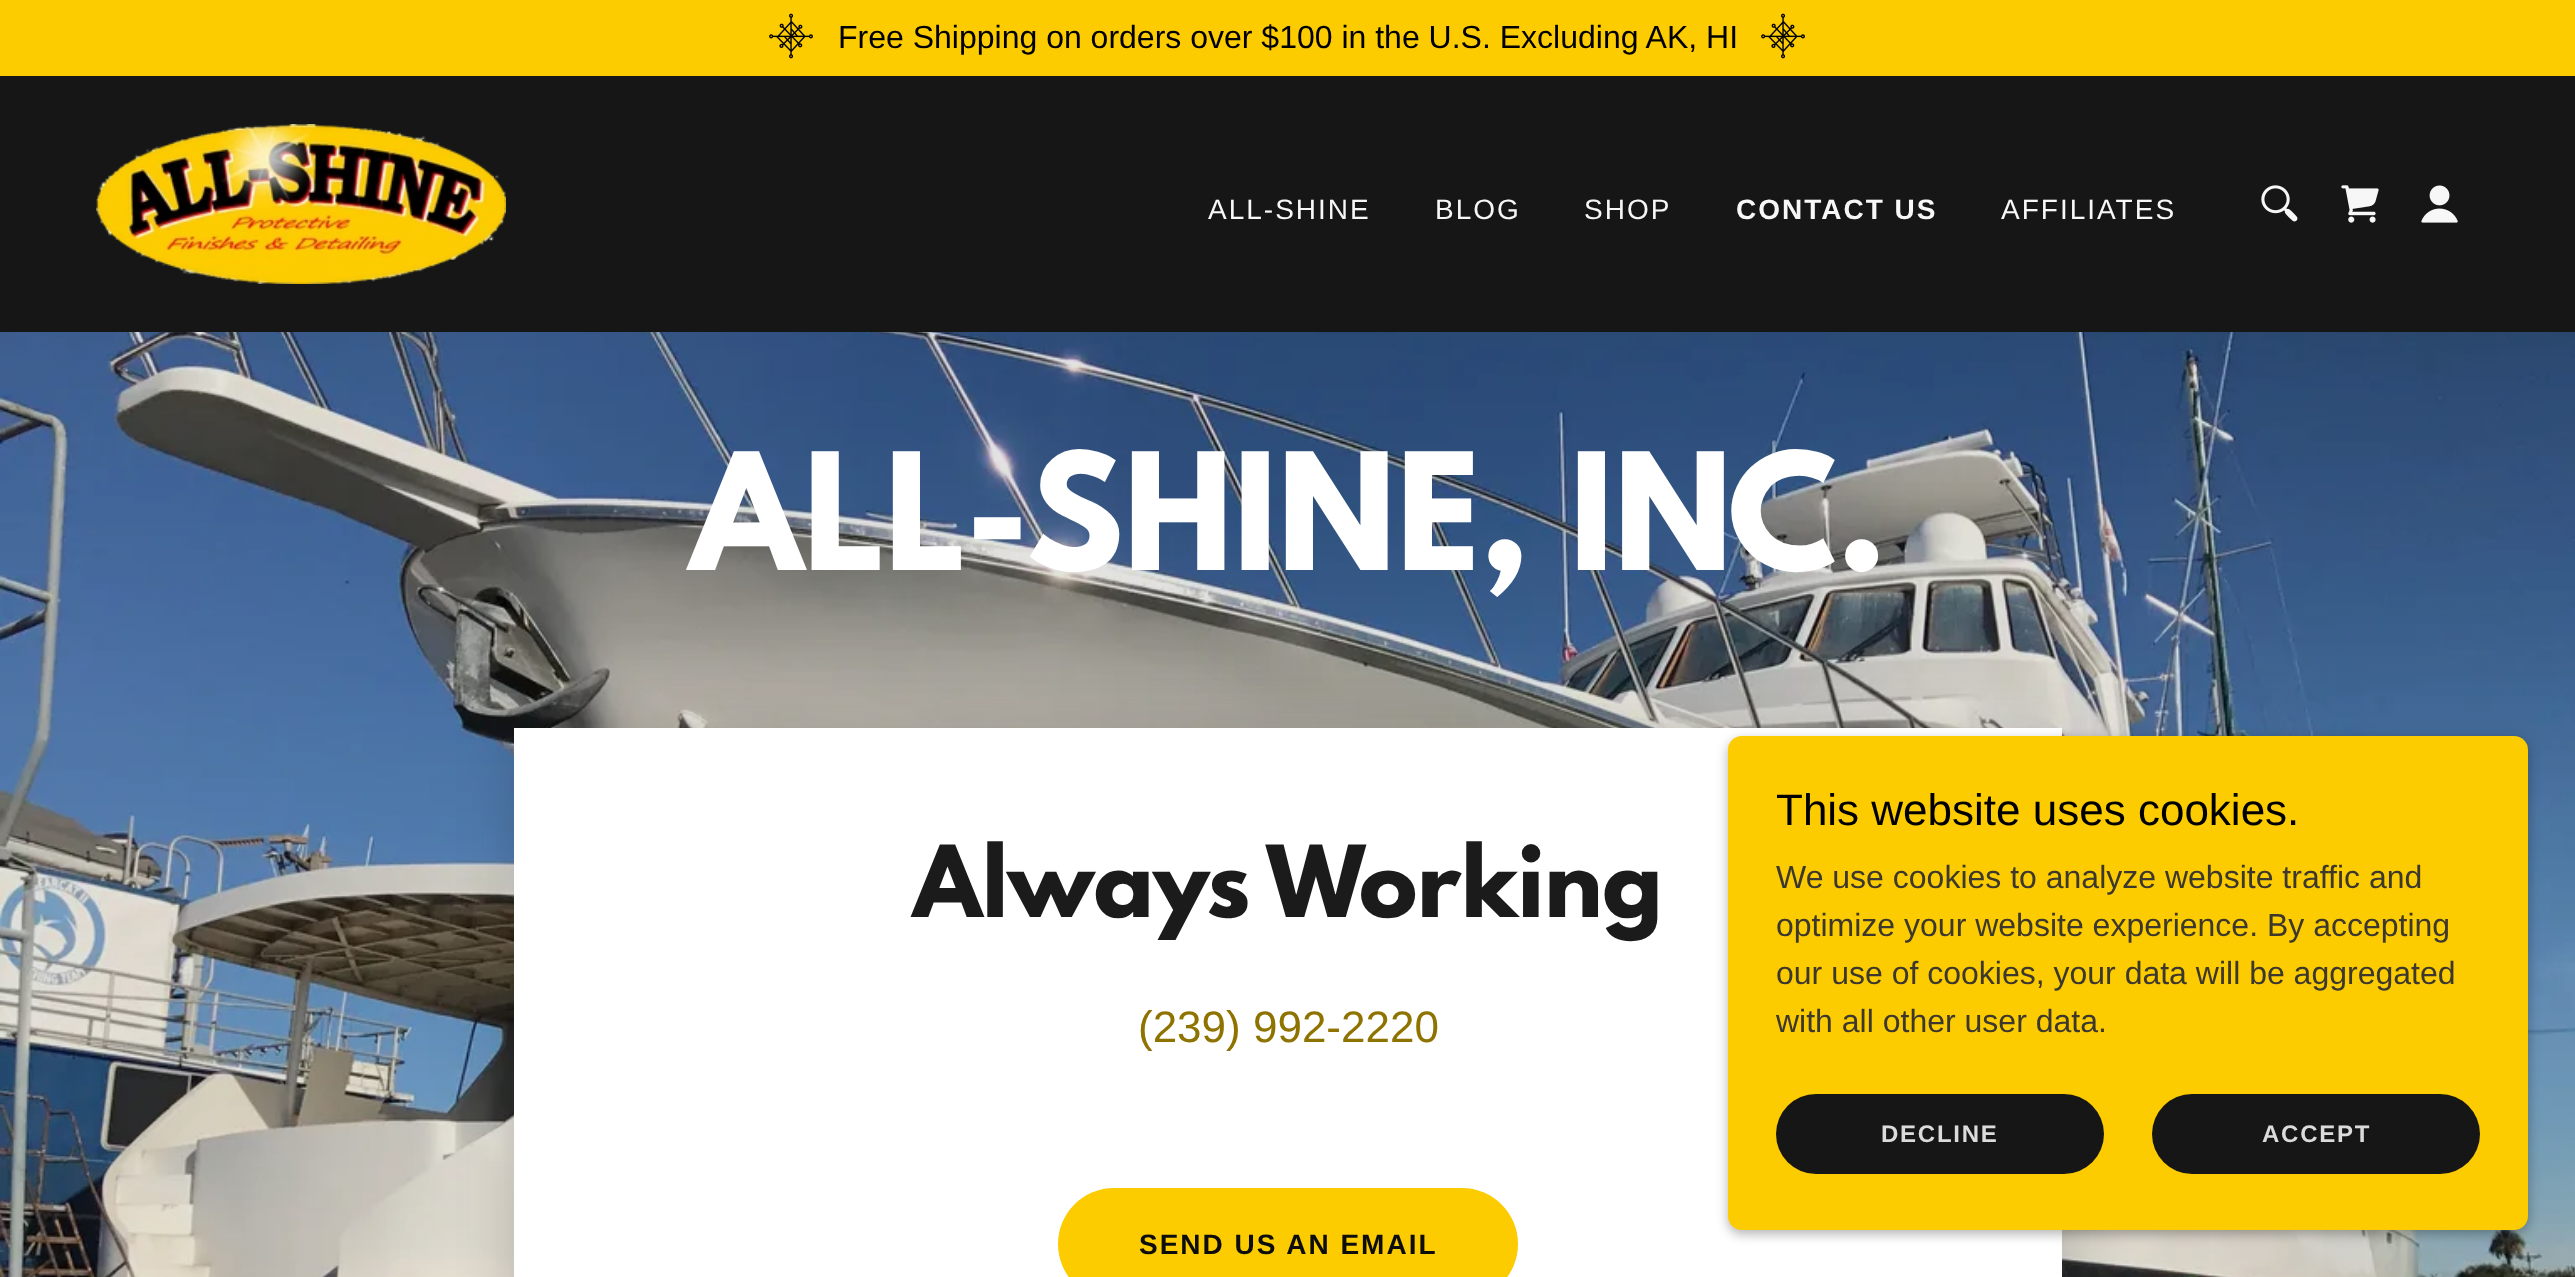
<?xml version="1.0" encoding="UTF-8"?>
<svg xmlns="http://www.w3.org/2000/svg" xmlns:xlink="http://www.w3.org/1999/xlink" width="2575" height="1277">
  <rect width="100%" height="100%" fill="#161616" />
  <rect width="2575" height="76" fill="#fccb00" />
  <image x="769" y="13" width="44" height="46" xlink:href="image1.png" />
  <image x="1761" y="13" width="44" height="46" xlink:href="image1.png" />
  <image x="96" y="124" width="410" height="160" xlink:href="image2.png" />
  <image x="2261" y="185" width="37" height="37" xlink:href="image3.png" />
  <image x="2341" y="185" width="38" height="38" xlink:href="image4.png" />
  <image x="2421" y="185" width="37" height="38" xlink:href="image5.png" />
  <image x="0" y="332" width="2575" height="945" xlink:href="image6.png" />
  <rect x="518" y="740" width="1548" height="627" fill="#000000" fill-opacity="0.18" filter="blur(30px)" />
  <rect x="514" y="728" width="1548" height="549" fill="#ffffff" />
  <rect x="1058" y="1188" width="460" height="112" rx="56" fill="#fccb00" />
  <rect x="1728" y="740" width="800" height="494" rx="14" fill="#000000" fill-opacity="0.3" filter="blur(6px)" />
  <rect x="1728" y="736" width="800" height="494" rx="14" fill="#fccb00" />
  <rect x="1776" y="1094" width="328" height="80" rx="40" fill="#161616" />
  <rect x="2152" y="1094" width="328" height="80" rx="40" fill="#161616" />
  <text x="838" y="48" style="font-family: Liberation Sans; font-size: 32px; fill: #000000">Free Shipping on orders over $100 in the U.S. Excluding AK, HI</text>
  <text x="1208" y="219" style="font-family: Liberation Sans; font-size: 28px; letter-spacing: 2px; fill: #f7f7f7">ALL-SHINE</text>
  <text x="1435" y="219" style="font-family: Liberation Sans; font-size: 28px; letter-spacing: 2px; fill: #f7f7f7">BLOG</text>
  <text x="1584" y="219" style="font-family: Liberation Sans; font-size: 28px; letter-spacing: 2px; fill: #f7f7f7">SHOP</text>
  <text x="1736" y="219" style="font-family: Liberation Sans; font-size: 28px; font-weight: bold; letter-spacing: 2px; fill: #f7f7f7">CONTACT US</text>
  <text x="2001" y="219" style="font-family: Liberation Sans; font-size: 28px; letter-spacing: 2px; fill: #f7f7f7">AFFILIATES</text>
  <text x="690" y="570" style="font-family: League Spartan; font-size: 144px; font-weight: bold; fill: #ffffff">ALL-SHINE, INC.</text>
  <text x="913" y="917" style="font-family: League Spartan; font-size: 88px; font-weight: bold; fill: #1b1b1b">Always Working</text>
  <text x="1138" y="1042" style="font-family: Liberation Sans; font-size: 44px; fill: #8f7300">(239) 992-2220</text>
  <text x="1139" y="1254" style="font-family: Liberation Sans; font-size: 28px; font-weight: bold; letter-spacing: 2px; fill: #0d0d0c">SEND US AN EMAIL</text>
  <text x="1776" y="825" style="font-family: Liberation Sans; font-size: 44px; fill: #000000">This website uses cookies.</text>
  <text x="1776" y="888" style="font-family: Liberation Sans; font-size: 32px; fill: #3d382e">We use cookies to analyze website traffic and</text>
  <text x="1776" y="936" style="font-family: Liberation Sans; font-size: 32px; fill: #3d382e">optimize your website experience. By accepting</text>
  <text x="1776" y="984" style="font-family: Liberation Sans; font-size: 32px; fill: #3d382e">our use of cookies, your data will be aggregated</text>
  <text x="1776" y="1032" style="font-family: Liberation Sans; font-size: 32px; fill: #3d382e">with all other user data.</text>
  <text x="1881" y="1142" style="font-family: Liberation Sans; font-size: 24px; font-weight: bold; letter-spacing: 1.75px; fill: #dbdbdb">DECLINE</text>
  <text x="2262" y="1142" style="font-family: Liberation Sans; font-size: 24px; font-weight: bold; letter-spacing: 1.75px; fill: #dbdbdb">ACCEPT</text>
</svg>
